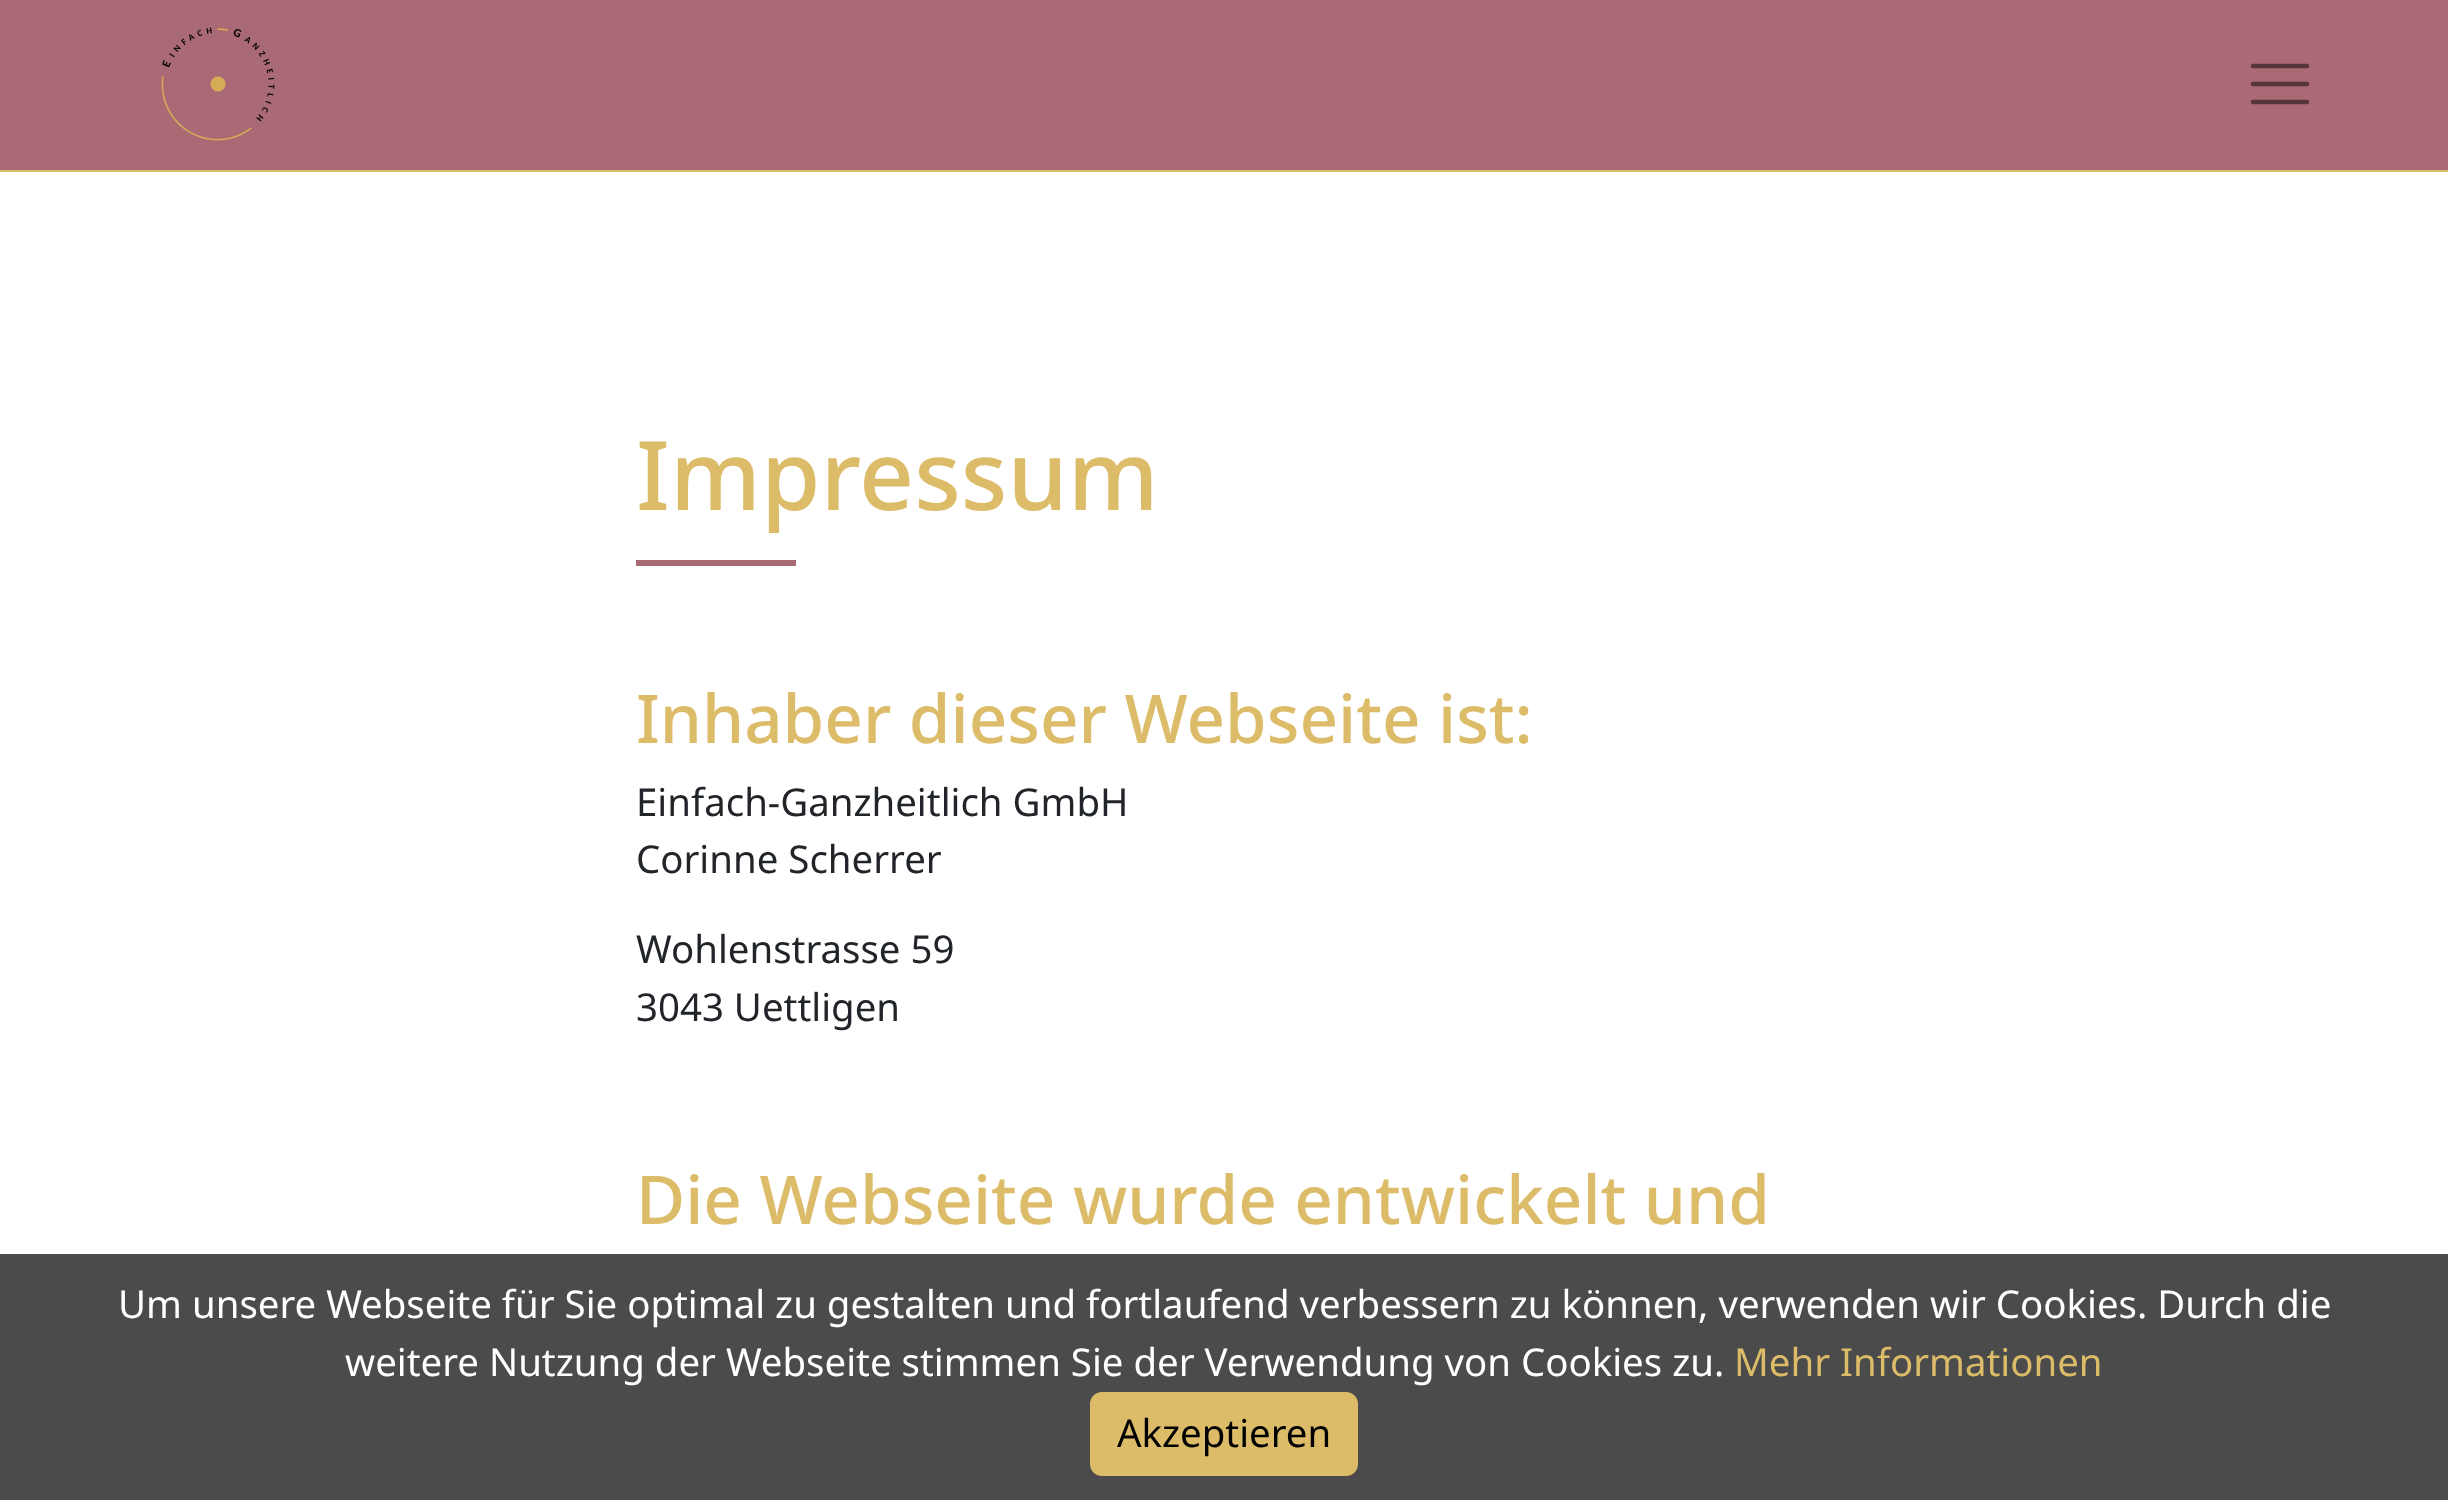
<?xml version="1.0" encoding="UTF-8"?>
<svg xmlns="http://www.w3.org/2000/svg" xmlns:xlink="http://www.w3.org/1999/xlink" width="2448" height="1500">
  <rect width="100%" height="100%" fill="#ffffff" />
  <rect width="2448" height="170" fill="#aa6a75" />
  <rect y="170" width="2448" height="2" fill="#ddbc69" />
  <image x="161" y="27" width="114" height="114" xlink:href="image1.png" />
  <path d="M 2253 66 h 54 m -54 18 h 54 m -54 18 h 54" fill="none" stroke="#55353b" stroke-width="4.5" stroke-linecap="round" />
  <rect x="636" y="560" width="160" height="6" fill="#aa6a75" />
  <rect y="1254" width="2448" height="246" fill="#4b4b4b" />
  <rect x="1091" y="1393" width="266" height="82" rx="11" fill="#ddbc69" stroke="#ddbc69" stroke-width="2" />
  <text x="636" y="510" style="font-family: Noto Sans; font-size: 96px; font-weight: 500; fill: #ddbc69">Impressum</text>
  <text x="636" y="743" style="font-family: Noto Sans; font-size: 67.25px; font-weight: 500; fill: #ddbc69">Inhaber dieser Webseite ist:</text>
  <text x="636" y="816" style="font-family: Noto Sans; font-size: 38.4px; fill: #212529">Einfach-Ganzheitlich GmbH</text>
  <text x="636" y="873" style="font-family: Noto Sans; font-size: 38.4px; fill: #212529">Corinne Scherrer</text>
  <text x="636" y="963" style="font-family: Noto Sans; font-size: 38.4px; fill: #212529">Wohlenstrasse 59</text>
  <text x="636" y="1021" style="font-family: Noto Sans; font-size: 38.4px; fill: #212529">3043 Uettligen</text>
  <text x="636" y="1224" style="font-family: Noto Sans; font-size: 67.25px; font-weight: 500; fill: #ddbc69">Die Webseite wurde entwickelt und</text>
  <text x="118" y="1318" style="font-family: Noto Sans; font-size: 38.4px; fill: #ffffff">Um unsere Webseite für Sie optimal zu gestalten und fortlaufend verbessern zu können, verwenden wir Cookies. Durch die</text>
  <text x="345" y="1376" style="font-family: Noto Sans; font-size: 38.4px; fill: #ffffff">weitere Nutzung der Webseite stimmen Sie der Verwendung von Cookies zu.</text>
  <text x="1734" y="1376" style="font-family: Noto Sans; font-size: 38.4px; fill: #ddbc69">Mehr Informationen</text>
  <text x="1117" y="1447" style="font-family: Noto Sans; font-size: 38.4px; fill: #000000">Akzeptieren</text>
</svg>
